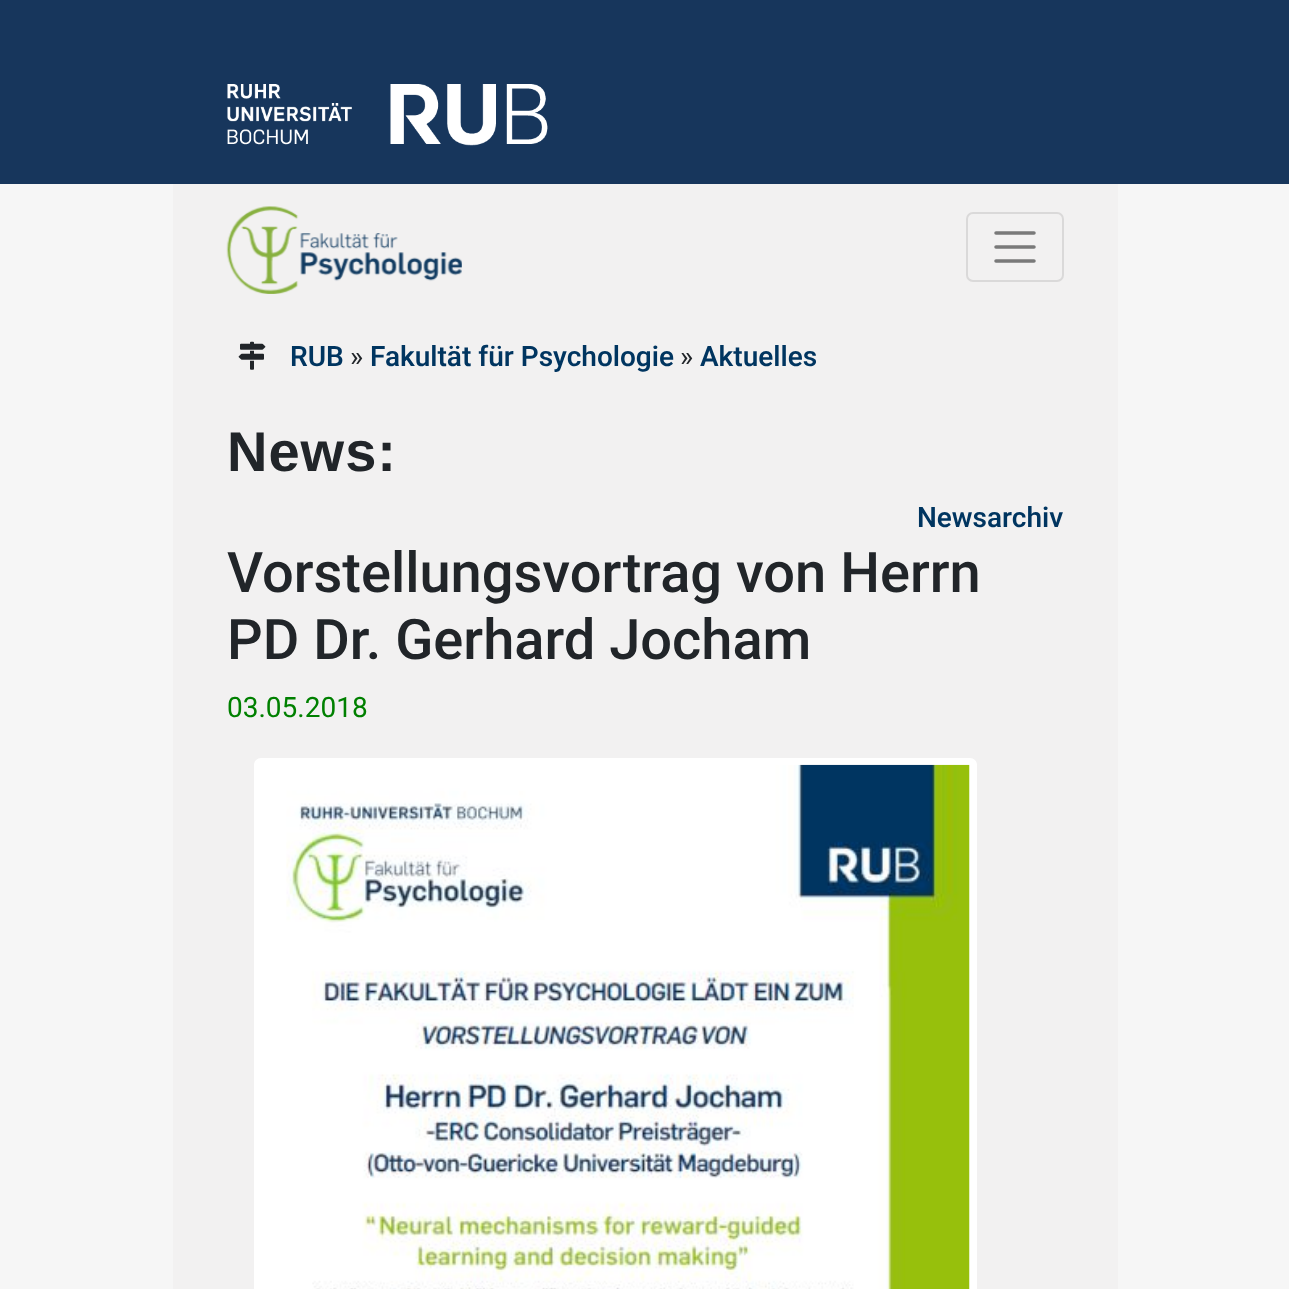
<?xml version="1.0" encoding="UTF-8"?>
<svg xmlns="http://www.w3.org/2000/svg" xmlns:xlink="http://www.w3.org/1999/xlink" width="1289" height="1289">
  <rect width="100%" height="100%" fill="#17365c" />
  <image x="227" y="84" width="321" height="62" xlink:href="image1.png" />
  <rect y="184" width="1289" height="1105" fill="#f6f6f6" />
  <rect x="173" y="184" width="945" height="1105" fill="#f2f1f1" />
  <image x="226" y="206" width="236" height="88" xlink:href="image2.png" />
  <rect x="967" y="213" width="96" height="68" rx="6" fill="none" stroke="#dad9d9" stroke-width="2" />
  <path d="M 996 233 h 38 m -38 14 h 38 m -38 14 h 38" fill="none" stroke="#797979" stroke-width="3.5" stroke-linecap="round" />
  <image x="238" y="341" width="28" height="29" xlink:href="image3.png" />
  <rect x="254" y="758" width="723" height="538" rx="7" fill="#ffffff" />
  <image x="286" y="764" width="684" height="525" xlink:href="image4.png" />
  <text x="290" y="366" style="font-family: 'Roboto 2'; font-size: 28px; font-weight: 500; fill: #003560">RUB</text>
  <text x="350" y="366" style="font-family: Roboto; font-size: 28px; fill: #212529">»</text>
  <text x="370" y="366" style="font-family: 'Roboto 2'; font-size: 28px; font-weight: 500; fill: #003560">Fakultät für Psychologie</text>
  <text x="680" y="366" style="font-family: Roboto; font-size: 28px; fill: #212529">»</text>
  <text x="700" y="366" style="font-family: 'Roboto 2'; font-size: 28px; font-weight: 500; fill: #003560">Aktuelles</text>
  <text x="227" y="471" style="font-family: Liberation Sans; font-size: 56px; font-weight: bold; letter-spacing: 1px; fill: #212529">News:</text>
  <text x="917" y="527" style="font-family: 'Roboto 2'; font-size: 28px; font-weight: 500; fill: #003560">Newsarchiv</text>
  <text x="227" y="592" style="font-family: Roboto; font-size: 56px; font-weight: 500; fill: #212529">Vorstellungsvortrag von Herrn</text>
  <text x="227" y="659" style="font-family: Roboto; font-size: 56px; font-weight: 500; fill: #212529">PD Dr. Gerhard Jocham</text>
  <text x="227" y="717" style="font-family: Roboto; font-size: 28px; fill: #008000">03.05.2018</text>
</svg>
